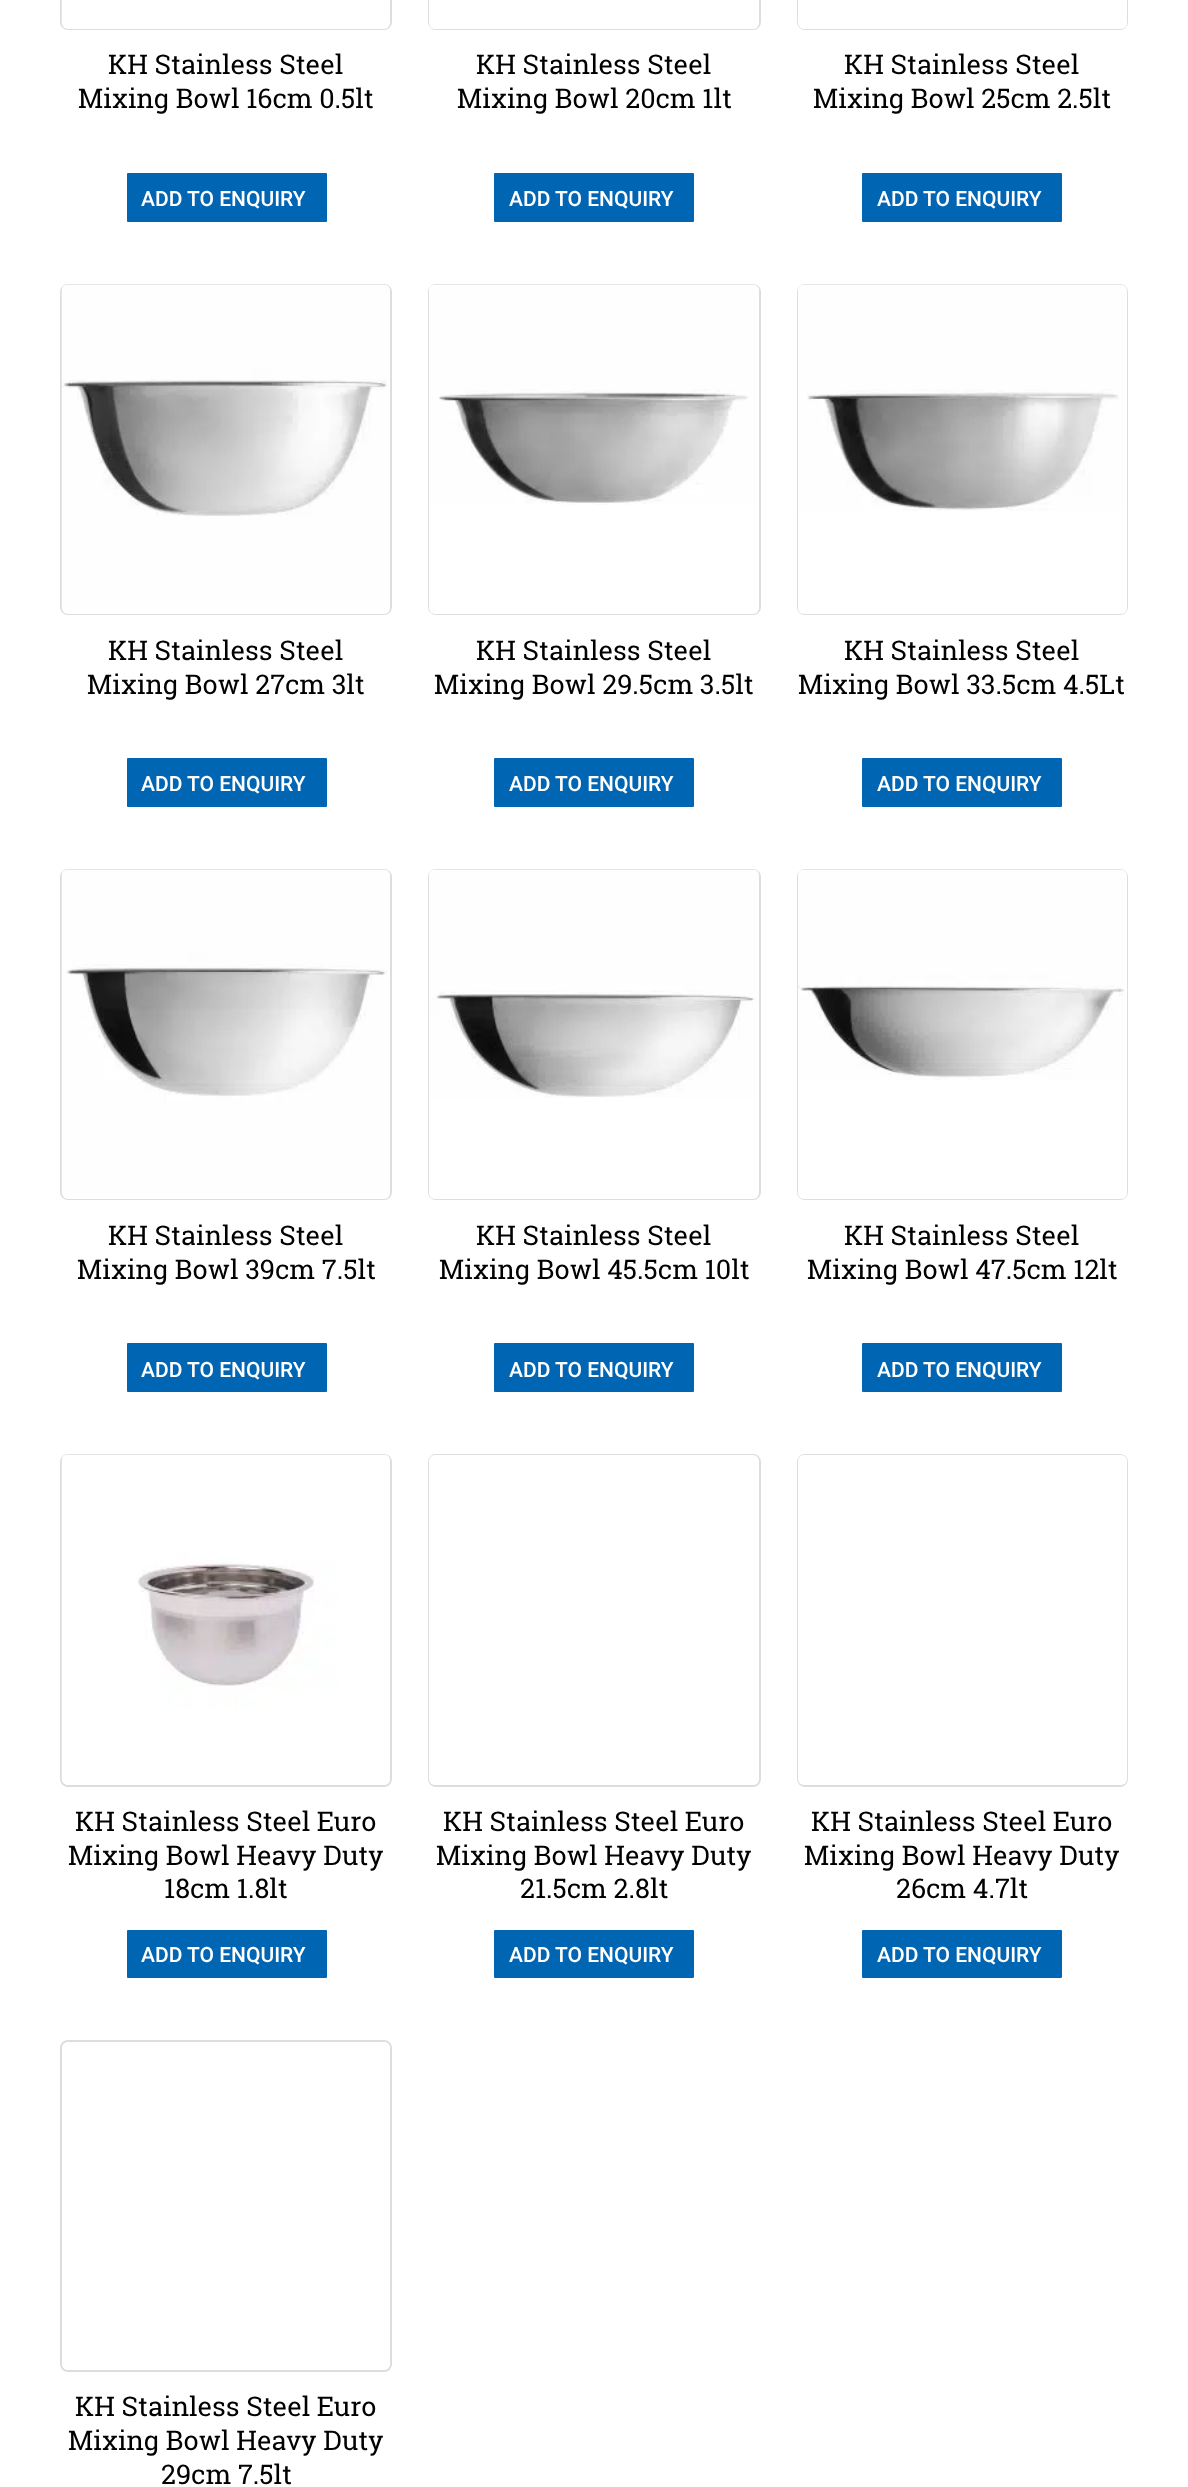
<?xml version="1.0" encoding="UTF-8"?>
<svg xmlns="http://www.w3.org/2000/svg" xmlns:xlink="http://www.w3.org/1999/xlink" width="1188" height="2487">
  <rect width="100%" height="100%" fill="#ffffff" />
  <rect x="61" y="-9" width="330" height="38" rx="7" fill="none" stroke="#dddddd" stroke-width="2" />
  <rect x="62" y="-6" width="328" height="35" rx="6" fill="#ffffff" />
  <image x="61" y="0" width="1" height="23" xlink:href="image1.png" />
  <rect x="126" y="172" width="202" height="51" rx="2" fill="#0066b4" stroke="#ffffff" stroke-width="2" />
  <rect x="429" y="-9" width="331" height="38" rx="7" fill="none" stroke="#dddddd" stroke-width="2" />
  <rect x="429" y="-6" width="330" height="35" rx="6" fill="#ffffff" />
  <rect x="493" y="172" width="202" height="51" rx="2" fill="#0066b4" stroke="#ffffff" stroke-width="2" />
  <rect x="798" y="-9" width="329" height="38" rx="7" fill="none" stroke="#dddddd" stroke-width="2" />
  <rect x="798" y="-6" width="329" height="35" rx="6" fill="#ffffff" />
  <rect x="861" y="172" width="202" height="51" rx="2" fill="#0066b4" stroke="#ffffff" stroke-width="2" />
  <rect x="61" y="285" width="330" height="329" rx="7" fill="none" stroke="#dddddd" stroke-width="2" />
  <rect x="62" y="285" width="328" height="329" rx="6" fill="#ffffff" />
  <image x="61" y="284" width="329" height="324" xlink:href="image2.png" />
  <rect x="126" y="757" width="202" height="51" rx="2" fill="#0066b4" stroke="#ffffff" stroke-width="2" />
  <rect x="429" y="285" width="331" height="329" rx="7" fill="none" stroke="#dddddd" stroke-width="2" />
  <rect x="429" y="285" width="330" height="329" rx="6" fill="#ffffff" />
  <image x="429" y="284" width="330" height="221" xlink:href="image3.png" />
  <rect x="493" y="757" width="202" height="51" rx="2" fill="#0066b4" stroke="#ffffff" stroke-width="2" />
  <rect x="798" y="285" width="329" height="329" rx="7" fill="none" stroke="#dddddd" stroke-width="2" />
  <rect x="798" y="285" width="329" height="329" rx="6" fill="#ffffff" />
  <image x="798" y="284" width="328" height="227" xlink:href="image4.png" />
  <rect x="861" y="757" width="202" height="51" rx="2" fill="#0066b4" stroke="#ffffff" stroke-width="2" />
  <rect x="61" y="870" width="330" height="329" rx="7" fill="none" stroke="#dddddd" stroke-width="2" />
  <rect x="62" y="870" width="328" height="329" rx="6" fill="#ffffff" />
  <image x="61" y="869" width="329" height="324" xlink:href="image5.png" />
  <rect x="126" y="1342" width="202" height="51" rx="2" fill="#0066b4" stroke="#ffffff" stroke-width="2" />
  <rect x="429" y="870" width="331" height="329" rx="7" fill="none" stroke="#dddddd" stroke-width="2" />
  <rect x="429" y="870" width="330" height="329" rx="6" fill="#ffffff" />
  <image x="429" y="869" width="330" height="229" xlink:href="image6.png" />
  <rect x="493" y="1342" width="202" height="51" rx="2" fill="#0066b4" stroke="#ffffff" stroke-width="2" />
  <rect x="798" y="870" width="329" height="329" rx="7" fill="none" stroke="#dddddd" stroke-width="2" />
  <rect x="798" y="870" width="329" height="329" rx="6" fill="#ffffff" />
  <image x="798" y="869" width="328" height="211" xlink:href="image7.png" />
  <rect x="861" y="1342" width="202" height="51" rx="2" fill="#0066b4" stroke="#ffffff" stroke-width="2" />
  <rect x="61" y="1455" width="330" height="331" rx="7" fill="none" stroke="#dddddd" stroke-width="2" />
  <rect x="62" y="1455" width="328" height="330" rx="6" fill="#ffffff" />
  <image x="61" y="1454" width="329" height="328" xlink:href="image8.png" />
  <rect x="126" y="1929" width="202" height="50" rx="2" fill="#0066b4" stroke="#ffffff" stroke-width="2" />
  <rect x="429" y="1455" width="331" height="331" rx="7" fill="none" stroke="#dddddd" stroke-width="2" />
  <rect x="429" y="1455" width="330" height="330" rx="6" fill="#ffffff" />
  <rect x="493" y="1929" width="202" height="50" rx="2" fill="#0066b4" stroke="#ffffff" stroke-width="2" />
  <rect x="798" y="1455" width="329" height="331" rx="7" fill="none" stroke="#dddddd" stroke-width="2" />
  <rect x="798" y="1455" width="329" height="330" rx="6" fill="#ffffff" />
  <rect x="861" y="1929" width="202" height="50" rx="2" fill="#0066b4" stroke="#ffffff" stroke-width="2" />
  <rect x="61" y="2041" width="330" height="330" rx="7" fill="none" stroke="#dddddd" stroke-width="2" />
  <rect x="62" y="2042" width="328" height="328" rx="6" fill="#ffffff" />
  <text x="108" y="74" style="font-family: Roboto Slab; font-size: 27px; fill: #000000">KH Stainless Steel</text>
  <text x="78" y="108" style="font-family: Roboto Slab; font-size: 27px; fill: #000000">Mixing Bowl 16cm 0.5lt</text>
  <text x="141" y="206" style="font-family: Roboto; font-size: 21px; font-weight: 500; fill: #ffffff">ADD TO ENQUIRY</text>
  <text x="476" y="74" style="font-family: Roboto Slab; font-size: 27px; fill: #000000">KH Stainless Steel</text>
  <text x="457" y="108" style="font-family: Roboto Slab; font-size: 27px; fill: #000000">Mixing Bowl 20cm 1lt</text>
  <text x="509" y="206" style="font-family: Roboto; font-size: 21px; font-weight: 500; fill: #ffffff">ADD TO ENQUIRY</text>
  <text x="844" y="74" style="font-family: Roboto Slab; font-size: 27px; fill: #000000">KH Stainless Steel</text>
  <text x="813" y="108" style="font-family: Roboto Slab; font-size: 27px; fill: #000000">Mixing Bowl 25cm 2.5lt</text>
  <text x="877" y="206" style="font-family: Roboto; font-size: 21px; font-weight: 500; fill: #ffffff">ADD TO ENQUIRY</text>
  <text x="108" y="660" style="font-family: Roboto Slab; font-size: 27px; fill: #000000">KH Stainless Steel</text>
  <text x="87" y="694" style="font-family: Roboto Slab; font-size: 27px; fill: #000000">Mixing Bowl 27cm 3lt</text>
  <text x="141" y="791" style="font-family: Roboto; font-size: 21px; font-weight: 500; fill: #ffffff">ADD TO ENQUIRY</text>
  <text x="476" y="660" style="font-family: Roboto Slab; font-size: 27px; fill: #000000">KH Stainless Steel</text>
  <text x="434" y="694" style="font-family: Roboto Slab; font-size: 27px; fill: #000000">Mixing Bowl 29.5cm 3.5lt</text>
  <text x="509" y="791" style="font-family: Roboto; font-size: 21px; font-weight: 500; fill: #ffffff">ADD TO ENQUIRY</text>
  <text x="844" y="660" style="font-family: Roboto Slab; font-size: 27px; fill: #000000">KH Stainless Steel</text>
  <text x="798" y="694" style="font-family: Roboto Slab; font-size: 27px; fill: #000000">Mixing Bowl 33.5cm 4.5Lt</text>
  <text x="877" y="791" style="font-family: Roboto; font-size: 21px; font-weight: 500; fill: #ffffff">ADD TO ENQUIRY</text>
  <text x="108" y="1245" style="font-family: Roboto Slab; font-size: 27px; fill: #000000">KH Stainless Steel</text>
  <text x="77" y="1279" style="font-family: Roboto Slab; font-size: 27px; fill: #000000">Mixing Bowl 39cm 7.5lt</text>
  <text x="141" y="1377" style="font-family: Roboto; font-size: 21px; font-weight: 500; fill: #ffffff">ADD TO ENQUIRY</text>
  <text x="476" y="1245" style="font-family: Roboto Slab; font-size: 27px; fill: #000000">KH Stainless Steel</text>
  <text x="439" y="1279" style="font-family: Roboto Slab; font-size: 27px; fill: #000000">Mixing Bowl 45.5cm 10lt</text>
  <text x="509" y="1377" style="font-family: Roboto; font-size: 21px; font-weight: 500; fill: #ffffff">ADD TO ENQUIRY</text>
  <text x="844" y="1245" style="font-family: Roboto Slab; font-size: 27px; fill: #000000">KH Stainless Steel</text>
  <text x="807" y="1279" style="font-family: Roboto Slab; font-size: 27px; fill: #000000">Mixing Bowl 47.5cm 12lt</text>
  <text x="877" y="1377" style="font-family: Roboto; font-size: 21px; font-weight: 500; fill: #ffffff">ADD TO ENQUIRY</text>
  <text x="75" y="1831" style="font-family: Roboto Slab; font-size: 27px; fill: #000000">KH Stainless Steel Euro</text>
  <text x="68" y="1865" style="font-family: Roboto Slab; font-size: 27px; fill: #000000">Mixing Bowl Heavy Duty</text>
  <text x="164" y="1898" style="font-family: Roboto Slab; font-size: 27px; fill: #000000">18cm 1.8lt</text>
  <text x="141" y="1962" style="font-family: Roboto; font-size: 21px; font-weight: 500; fill: #ffffff">ADD TO ENQUIRY</text>
  <text x="443" y="1831" style="font-family: Roboto Slab; font-size: 27px; fill: #000000">KH Stainless Steel Euro</text>
  <text x="436" y="1865" style="font-family: Roboto Slab; font-size: 27px; fill: #000000">Mixing Bowl Heavy Duty</text>
  <text x="520" y="1898" style="font-family: Roboto Slab; font-size: 27px; fill: #000000">21.5cm 2.8lt</text>
  <text x="509" y="1962" style="font-family: Roboto; font-size: 21px; font-weight: 500; fill: #ffffff">ADD TO ENQUIRY</text>
  <text x="811" y="1831" style="font-family: Roboto Slab; font-size: 27px; fill: #000000">KH Stainless Steel Euro</text>
  <text x="804" y="1865" style="font-family: Roboto Slab; font-size: 27px; fill: #000000">Mixing Bowl Heavy Duty</text>
  <text x="896" y="1898" style="font-family: Roboto Slab; font-size: 27px; fill: #000000">26cm 4.7lt</text>
  <text x="877" y="1962" style="font-family: Roboto; font-size: 21px; font-weight: 500; fill: #ffffff">ADD TO ENQUIRY</text>
  <text x="75" y="2416" style="font-family: Roboto Slab; font-size: 27px; fill: #000000">KH Stainless Steel Euro</text>
  <text x="68" y="2450" style="font-family: Roboto Slab; font-size: 27px; fill: #000000">Mixing Bowl Heavy Duty</text>
  <text x="161" y="2484" style="font-family: Roboto Slab; font-size: 27px; fill: #000000">29cm 7.5lt</text>
</svg>
